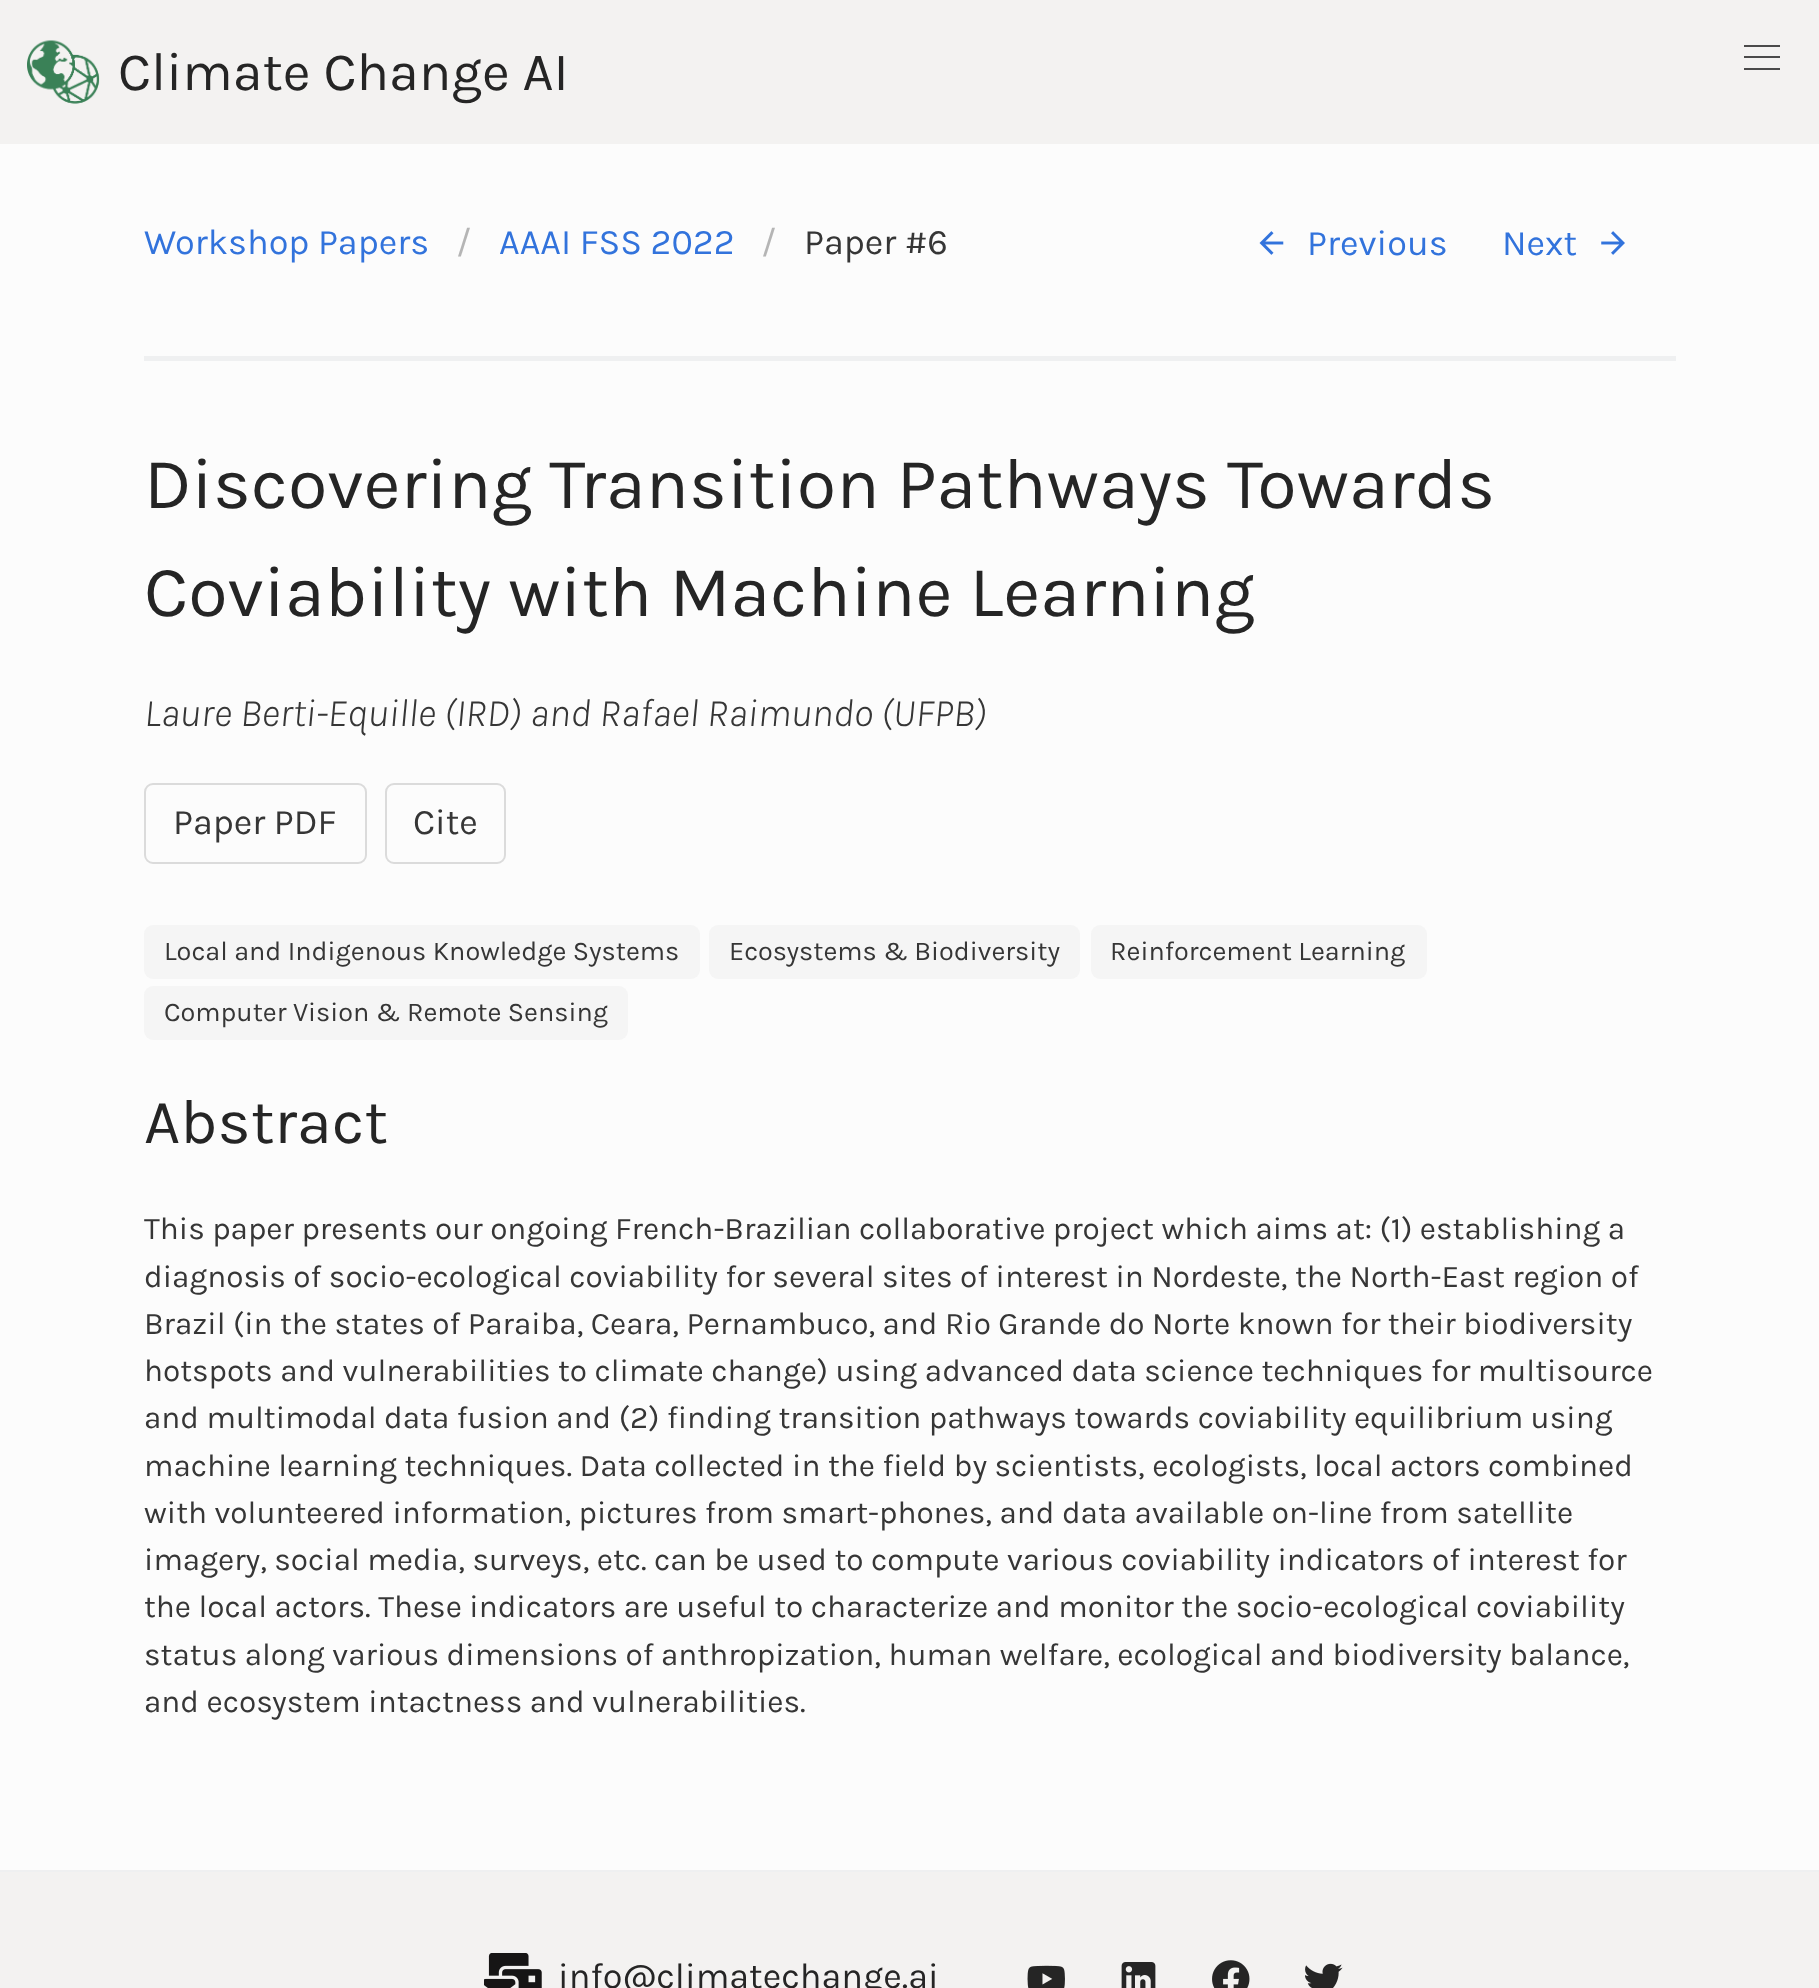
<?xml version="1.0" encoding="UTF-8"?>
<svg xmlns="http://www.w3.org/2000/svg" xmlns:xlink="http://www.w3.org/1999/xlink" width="1819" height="1988">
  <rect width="100%" height="100%" fill="#fcfcfc" />
  <rect width="1819" height="144" fill="#f3f2f1" />
  <image x="27" y="40" width="73" height="64" xlink:href="image1.png" />
  <rect x="1744" y="45" width="36" height="2" fill="#4a4a4a" />
  <rect x="1744" y="56" width="36" height="2" fill="#4a4a4a" />
  <rect x="1744" y="68" width="36" height="2" fill="#4a4a4a" />
  <image x="1259" y="231" width="25" height="24" xlink:href="image2.png" />
  <image x="1601" y="231" width="24" height="24" xlink:href="image3.png" />
  <rect x="144" y="356" width="1532" height="5" fill="#eff0f1" />
  <rect x="145" y="784" width="221" height="79" rx="8" fill="none" stroke="#dbdbdb" stroke-width="2" />
  <rect x="386" y="784" width="119" height="79" rx="8" fill="none" stroke="#dbdbdb" stroke-width="2" />
  <rect x="144" y="925" width="556" height="54" rx="9" fill="#f5f5f5" />
  <rect x="709" y="925" width="371" height="54" rx="9" fill="#f5f5f5" />
  <rect x="1091" y="925" width="336" height="54" rx="9" fill="#f5f5f5" />
  <rect x="144" y="986" width="484" height="54" rx="9" fill="#f5f5f5" />
  <rect y="1872" width="1819" height="116" fill="#f3f2f1" />
  <rect y="1870" width="1819" height="2" fill="#eff0f1" />
  <image x="484" y="1953" width="58" height="35" xlink:href="image4.png" />
  <image x="1027" y="1965" width="38" height="23" xlink:href="image5.png" />
  <image x="1121" y="1962" width="35" height="26" xlink:href="image6.png" />
  <image x="1212" y="1960" width="38" height="28" xlink:href="image7.png" />
  <image x="1305" y="1963" width="38" height="25" xlink:href="image8.png" />
  <text x="118" y="90" style="font-family: Karla; font-size: 54px; fill: #252525">Climate Change AI</text>
  <text x="144" y="254" style="font-family: Karla; font-size: 36px; fill: #3273dc">Workshop Papers</text>
  <text x="456" y="254" style="font-family: Karla; font-size: 36px; fill: #b5b5b5">/</text>
  <text x="499" y="254" style="font-family: Karla; font-size: 36px; fill: #3273dc">AAAI FSS 2022</text>
  <text x="761" y="254" style="font-family: Karla; font-size: 36px; fill: #b5b5b5">/</text>
  <text x="804" y="254" style="font-family: Karla; font-size: 36px; fill: #363636">Paper #6</text>
  <text x="1307" y="255" style="font-family: Karla; font-size: 36px; fill: #3273dc">Previous</text>
  <text x="1502" y="255" style="font-family: Karla; font-size: 36px; fill: #3273dc">Next</text>
  <text x="144" y="508" style="font-family: Karla; font-size: 72px; fill: #252525">Discovering Transition Pathways Towards</text>
  <text x="144" y="616" style="font-family: Karla; font-size: 72px; fill: #252525">Coviability with Machine Learning</text>
  <text x="144" y="726" style="font-family: Karla; font-size: 39.6px; font-weight: 300; font-style: italic; fill: #363636">Laure Berti-Equille (IRD) and Rafael Raimundo (UFPB)</text>
  <text x="173" y="834" style="font-family: Karla; font-size: 36px; fill: #363636">Paper PDF</text>
  <text x="413" y="834" style="font-family: Karla; font-size: 36px; fill: #363636">Cite</text>
  <text x="164" y="960" style="font-family: Karla; font-size: 27px; fill: #363636">Local and Indigenous Knowledge Systems</text>
  <text x="729" y="960" style="font-family: Karla; font-size: 27px; fill: #363636">Ecosystems &amp; Biodiversity</text>
  <text x="1110" y="960" style="font-family: Karla; font-size: 27px; fill: #363636">Reinforcement Learning</text>
  <text x="164" y="1021" style="font-family: Karla; font-size: 27px; fill: #363636">Computer Vision &amp; Remote Sensing</text>
  <text x="144" y="1143" style="font-family: Karla; font-size: 63px; fill: #252525">Abstract</text>
  <text x="144" y="1239" style="font-family: Karla; font-size: 31.5px; fill: #363636">This paper presents our ongoing French-Brazilian collaborative project which aims at: (1) establishing a</text>
  <text x="144" y="1287" style="font-family: Karla; font-size: 31.5px; fill: #363636">diagnosis of socio-ecological coviability for several sites of interest in Nordeste, the North-East region of</text>
  <text x="144" y="1334" style="font-family: Karla; font-size: 31.5px; fill: #363636">Brazil (in the states of Paraiba, Ceara, Pernambuco, and Rio Grande do Norte known for their biodiversity</text>
  <text x="144" y="1381" style="font-family: Karla; font-size: 31.5px; fill: #363636">hotspots and vulnerabilities to climate change) using advanced data science techniques for multisource</text>
  <text x="144" y="1428" style="font-family: Karla; font-size: 31.5px; fill: #363636">and multimodal data fusion and (2) finding transition pathways towards coviability equilibrium using</text>
  <text x="144" y="1476" style="font-family: Karla; font-size: 31.5px; fill: #363636">machine learning techniques. Data collected in the field by scientists, ecologists, local actors combined</text>
  <text x="144" y="1523" style="font-family: Karla; font-size: 31.5px; fill: #363636">with volunteered information, pictures from smart-phones, and data available on-line from satellite</text>
  <text x="144" y="1570" style="font-family: Karla; font-size: 31.5px; fill: #363636">imagery, social media, surveys, etc. can be used to compute various coviability indicators of interest for</text>
  <text x="144" y="1617" style="font-family: Karla; font-size: 31.5px; fill: #363636">the local actors. These indicators are useful to characterize and monitor the socio-ecological coviability</text>
  <text x="144" y="1665" style="font-family: Karla; font-size: 31.5px; fill: #363636">status along various dimensions of anthropization, human welfare, ecological and biodiversity balance,</text>
  <text x="144" y="1712" style="font-family: Karla; font-size: 31.5px; fill: #363636">and ecosystem intactness and vulnerabilities.</text>
  <text x="558" y="1988" style="font-family: Karla; font-size: 36px; fill: #252525">info@climatechange.ai</text>
</svg>
